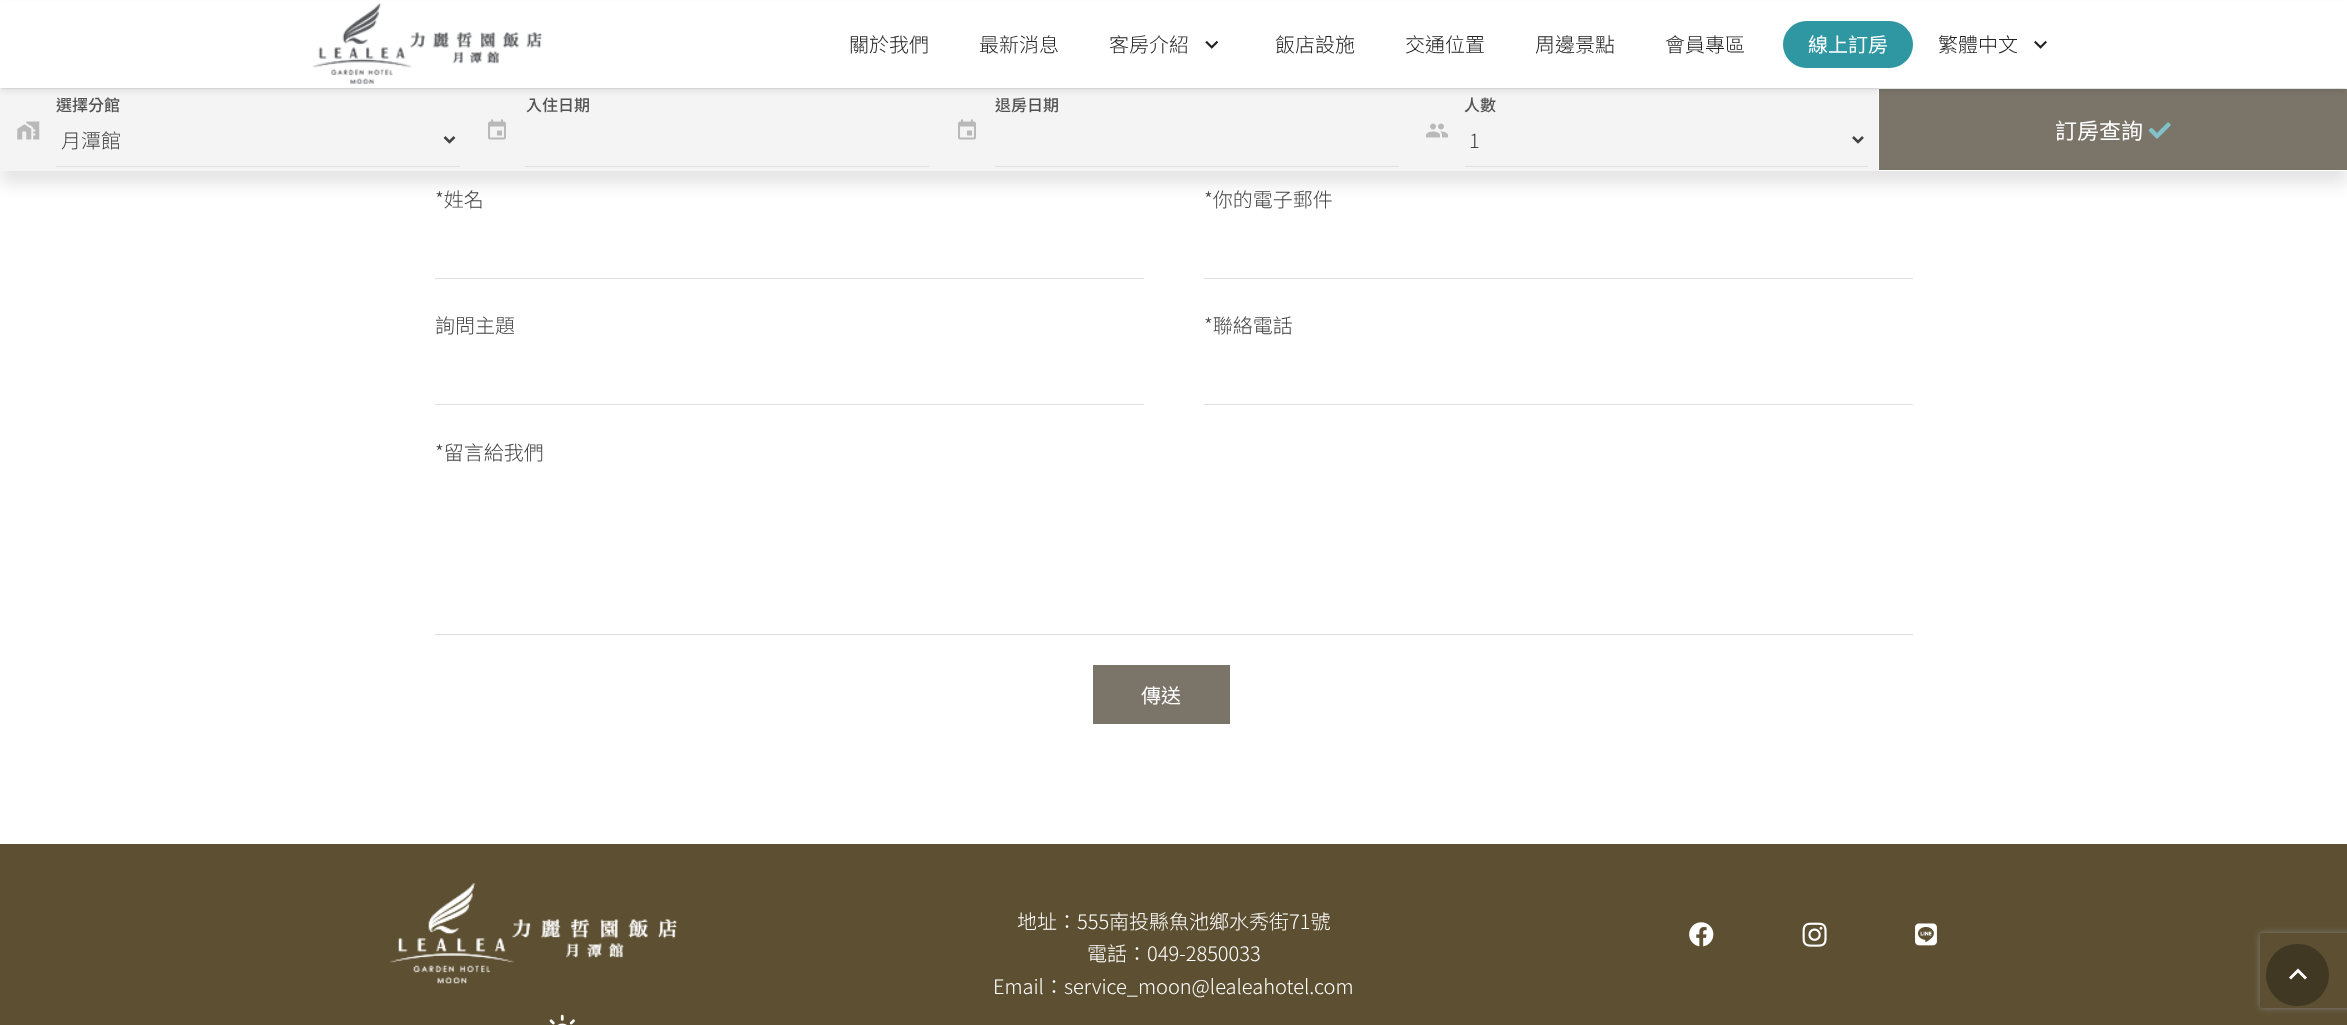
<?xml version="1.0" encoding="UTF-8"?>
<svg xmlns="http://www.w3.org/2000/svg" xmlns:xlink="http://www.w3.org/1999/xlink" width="2347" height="1025">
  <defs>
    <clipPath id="clip1"><path d="M 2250 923 h 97 v 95 h -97 z m 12.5 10 h 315 c 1.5 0 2.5 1 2.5 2.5 v 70 c 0 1.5 -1 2.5 -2.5 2.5 h -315 c -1.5 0 -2.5 -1 -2.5 -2.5 v -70 c 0 -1.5 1 -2.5 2.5 -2.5 z" clip-rule="evenodd" /></clipPath>
  </defs>
  <rect width="100%" height="100%" fill="#ffffff" />
  <rect y="100" width="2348" height="84" fill="#000000" fill-opacity="0.1" filter="blur(7.5px)" />
  <rect y="88" width="1878" height="83" fill="#f4f4f4" />
  <rect x="1879" y="89" width="468" height="81" fill="#7a7469" />
  <image x="2148" y="122" width="23" height="17" xlink:href="image7.png" />
  <rect x="1878.5" y="88.5" width="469" height="82" fill="none" stroke="#ffffff" />
  <rect x="1" y="4" width="2345" height="85" fill="#000000" fill-opacity="0.05" filter="blur(0.5px)" />
  <rect x="1" y="5" width="2345" height="85" fill="#000000" fill-opacity="0.1" filter="blur(3px)" />
  <rect y="1" width="2347" height="87" fill="#ffffff" />
  <image x="312" y="3" width="230" height="81" xlink:href="image1.png" />
  <image x="1205" y="40" width="14" height="9" xlink:href="image2.png" />
  <rect x="1783" y="21" width="130" height="47" rx="23.5" fill="#2f97a2" />
  <image x="2034" y="40" width="13" height="9" xlink:href="image3.png" />
  <image x="17" y="121" width="23" height="19" xlink:href="image4.png" />
  <rect x="56" y="166" width="404" height="1" fill="#e0e0e0" />
  <path d="M 444.5 137 l 5 5 l 5 -5" fill="none" stroke="#424242" stroke-width="2.5" />
  <image x="488" y="119" width="18" height="21" xlink:href="image5.png" />
  <rect x="525" y="166" width="404" height="1" fill="#e0e0e0" />
  <image x="958" y="119" width="18" height="21" xlink:href="image5.png" />
  <rect x="995" y="166" width="404" height="1" fill="#e0e0e0" />
  <image x="1426" y="123" width="22" height="15" xlink:href="image6.png" />
  <rect x="1465" y="166" width="403" height="1" fill="#e0e0e0" />
  <path d="M 1853 137 l 5 5 l 5 -5" fill="none" stroke="#424242" stroke-width="2.5" />
  <rect x="435" y="278" width="709" height="1" fill="#e0e0e0" />
  <rect x="435" y="404" width="709" height="1" fill="#e0e0e0" />
  <rect x="1204" y="278" width="709" height="1" fill="#e0e0e0" />
  <rect x="1204" y="404" width="709" height="1" fill="#e0e0e0" />
  <rect x="435" y="634" width="1478" height="1" fill="#e0e0e0" />
  <rect x="1093" y="665" width="137" height="59" fill="#7a7469" />
  <rect y="844" width="2347" height="181" fill="#5d5032" />
  <image x="390" y="883" width="287" height="101" xlink:href="image8.png" />
  <image x="549" y="1014" width="26" height="11" xlink:href="image9.png" />
  <image x="1689" y="922" width="25" height="25" xlink:href="image10.png" />
  <image x="1802" y="922" width="25" height="25" xlink:href="image11.png" />
  <image x="1915" y="923" width="22" height="23" xlink:href="image12.png" />
  <g clip-path="url(#clip1)">
    <rect x="2260" y="933" width="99" height="75" rx="2.5" fill="#808080" filter="blur(3px)" />
  </g>
  <rect x="2266" y="944" width="63" height="62" rx="31" fill="#413823" />
  <path d="M 2291 979.5 l -2 -2 l 9 -9 l 9 9 l -2 2 l -7 -7 z" fill="#ffffff" />
  <text x="849" y="52" style="font-family: Noto Sans TC; font-size: 20px; font-weight: 300; fill: #212121">關於我們</text>
  <text x="979" y="52" style="font-family: Noto Sans TC; font-size: 20px; font-weight: 300; fill: #212121">最新消息</text>
  <text x="1109" y="52" style="font-family: Noto Sans TC; font-size: 20px; font-weight: 300; fill: #212121">客房介紹</text>
  <text x="1275" y="52" style="font-family: Noto Sans TC; font-size: 20px; font-weight: 300; fill: #212121">飯店設施</text>
  <text x="1405" y="52" style="font-family: Noto Sans TC; font-size: 20px; font-weight: 300; fill: #212121">交通位置</text>
  <text x="1535" y="52" style="font-family: Noto Sans TC; font-size: 20px; font-weight: 300; fill: #212121">周邊景點</text>
  <text x="1665" y="52" style="font-family: Noto Sans TC; font-size: 20px; font-weight: 300; fill: #212121">會員專區</text>
  <text x="1808" y="52" style="font-family: Noto Sans TC; font-size: 20px; fill: #ffffff">線上訂房</text>
  <text x="1938" y="52" style="font-family: Noto Sans TC; font-size: 20px; font-weight: 300; fill: #212121">繁體中文</text>
  <text x="56" y="111" style="font-family: Noto Sans TC; font-size: 16px; font-weight: 500; fill: #535353">選擇分館</text>
  <text x="61" y="148" style="font-family: Noto Sans TC; font-size: 20px; font-weight: 300; fill: #424242">月潭館</text>
  <text x="526" y="111" style="font-family: Noto Sans TC; font-size: 16px; font-weight: 500; fill: #535353">入住日期</text>
  <text x="995" y="111" style="font-family: Noto Sans TC; font-size: 16px; font-weight: 500; fill: #535353">退房日期</text>
  <text x="1464" y="111" style="font-family: Noto Sans TC; font-size: 16px; font-weight: 500; fill: #535353">人數</text>
  <text x="1469" y="148" style="font-family: Noto Sans TC; font-size: 20px; font-weight: 300; fill: #424242">1</text>
  <text x="2055" y="139" style="font-family: Noto Sans TC; font-size: 22px; fill: #ffffff">訂房查詢</text>
  <text x="435" y="207" style="font-family: Noto Sans TC; font-size: 20px; font-weight: 300; fill: #424242">*姓名</text>
  <text x="435" y="333" style="font-family: Noto Sans TC; font-size: 20px; font-weight: 300; fill: #424242">詢問主題</text>
  <text x="1204" y="207" style="font-family: Noto Sans TC; font-size: 20px; font-weight: 300; fill: #424242">*你的電子郵件</text>
  <text x="1204" y="333" style="font-family: Noto Sans TC; font-size: 20px; font-weight: 300; fill: #424242">*聯絡電話</text>
  <text x="435" y="460" style="font-family: Noto Sans TC; font-size: 20px; font-weight: 300; fill: #424242">*留言給我們</text>
  <text x="1141" y="703" style="font-family: Noto Sans TC; font-size: 20px; fill: #ffffff">傳送</text>
  <text x="1017" y="929" style="font-family: Noto Sans TC; font-size: 20px; font-weight: 300; fill: #ffffff">地址：555南投縣魚池鄉水秀街71號</text>
  <text x="1087" y="961" style="font-family: Noto Sans TC; font-size: 20px; font-weight: 300; fill: #ffffff">電話：049-2850033</text>
  <text x="993" y="994" style="font-family: Noto Sans TC; font-size: 20px; font-weight: 300; fill: #ffffff">Email：service_moon@lealeahotel.com</text>
</svg>
